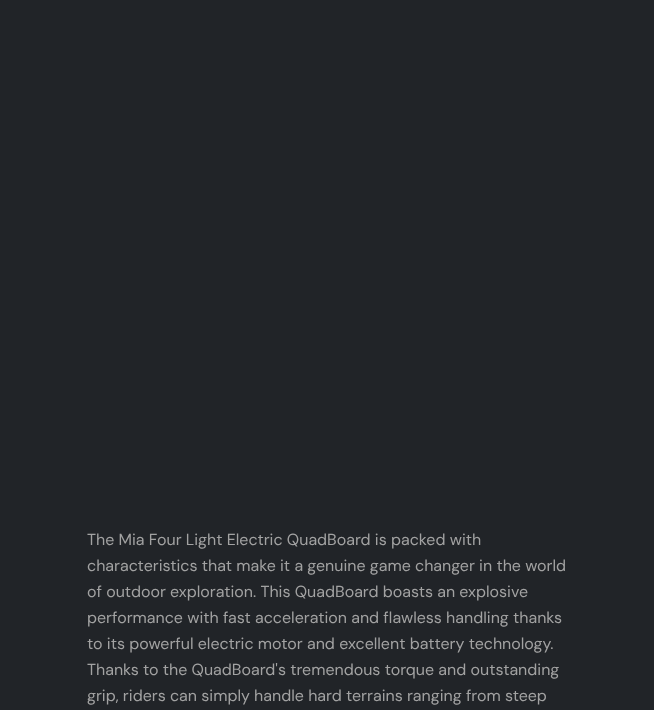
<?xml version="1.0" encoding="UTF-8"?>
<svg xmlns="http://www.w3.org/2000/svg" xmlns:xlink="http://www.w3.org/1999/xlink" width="654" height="710">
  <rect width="100%" height="100%" fill="#212428" />
  <text x="87" y="545" style="font-family: DM Sans; font-size: 16px; fill: #a2a2a2">The Mia Four Light Electric QuadBoard is packed with</text>
  <text x="87" y="571" style="font-family: DM Sans; font-size: 16px; fill: #a2a2a2">characteristics that make it a genuine game changer in the world</text>
  <text x="87" y="597" style="font-family: DM Sans; font-size: 16px; fill: #a2a2a2">of outdoor exploration. This QuadBoard boasts an explosive</text>
  <text x="87" y="623" style="font-family: DM Sans; font-size: 16px; fill: #a2a2a2">performance with fast acceleration and flawless handling thanks</text>
  <text x="87" y="649" style="font-family: DM Sans; font-size: 16px; fill: #a2a2a2">to its powerful electric motor and excellent battery technology.</text>
  <text x="87" y="675" style="font-family: DM Sans; font-size: 16px; fill: #a2a2a2">Thanks to the QuadBoard's tremendous torque and outstanding</text>
  <text x="87" y="701" style="font-family: DM Sans; font-size: 16px; fill: #a2a2a2">grip, riders can simply handle hard terrains ranging from steep</text>
</svg>
